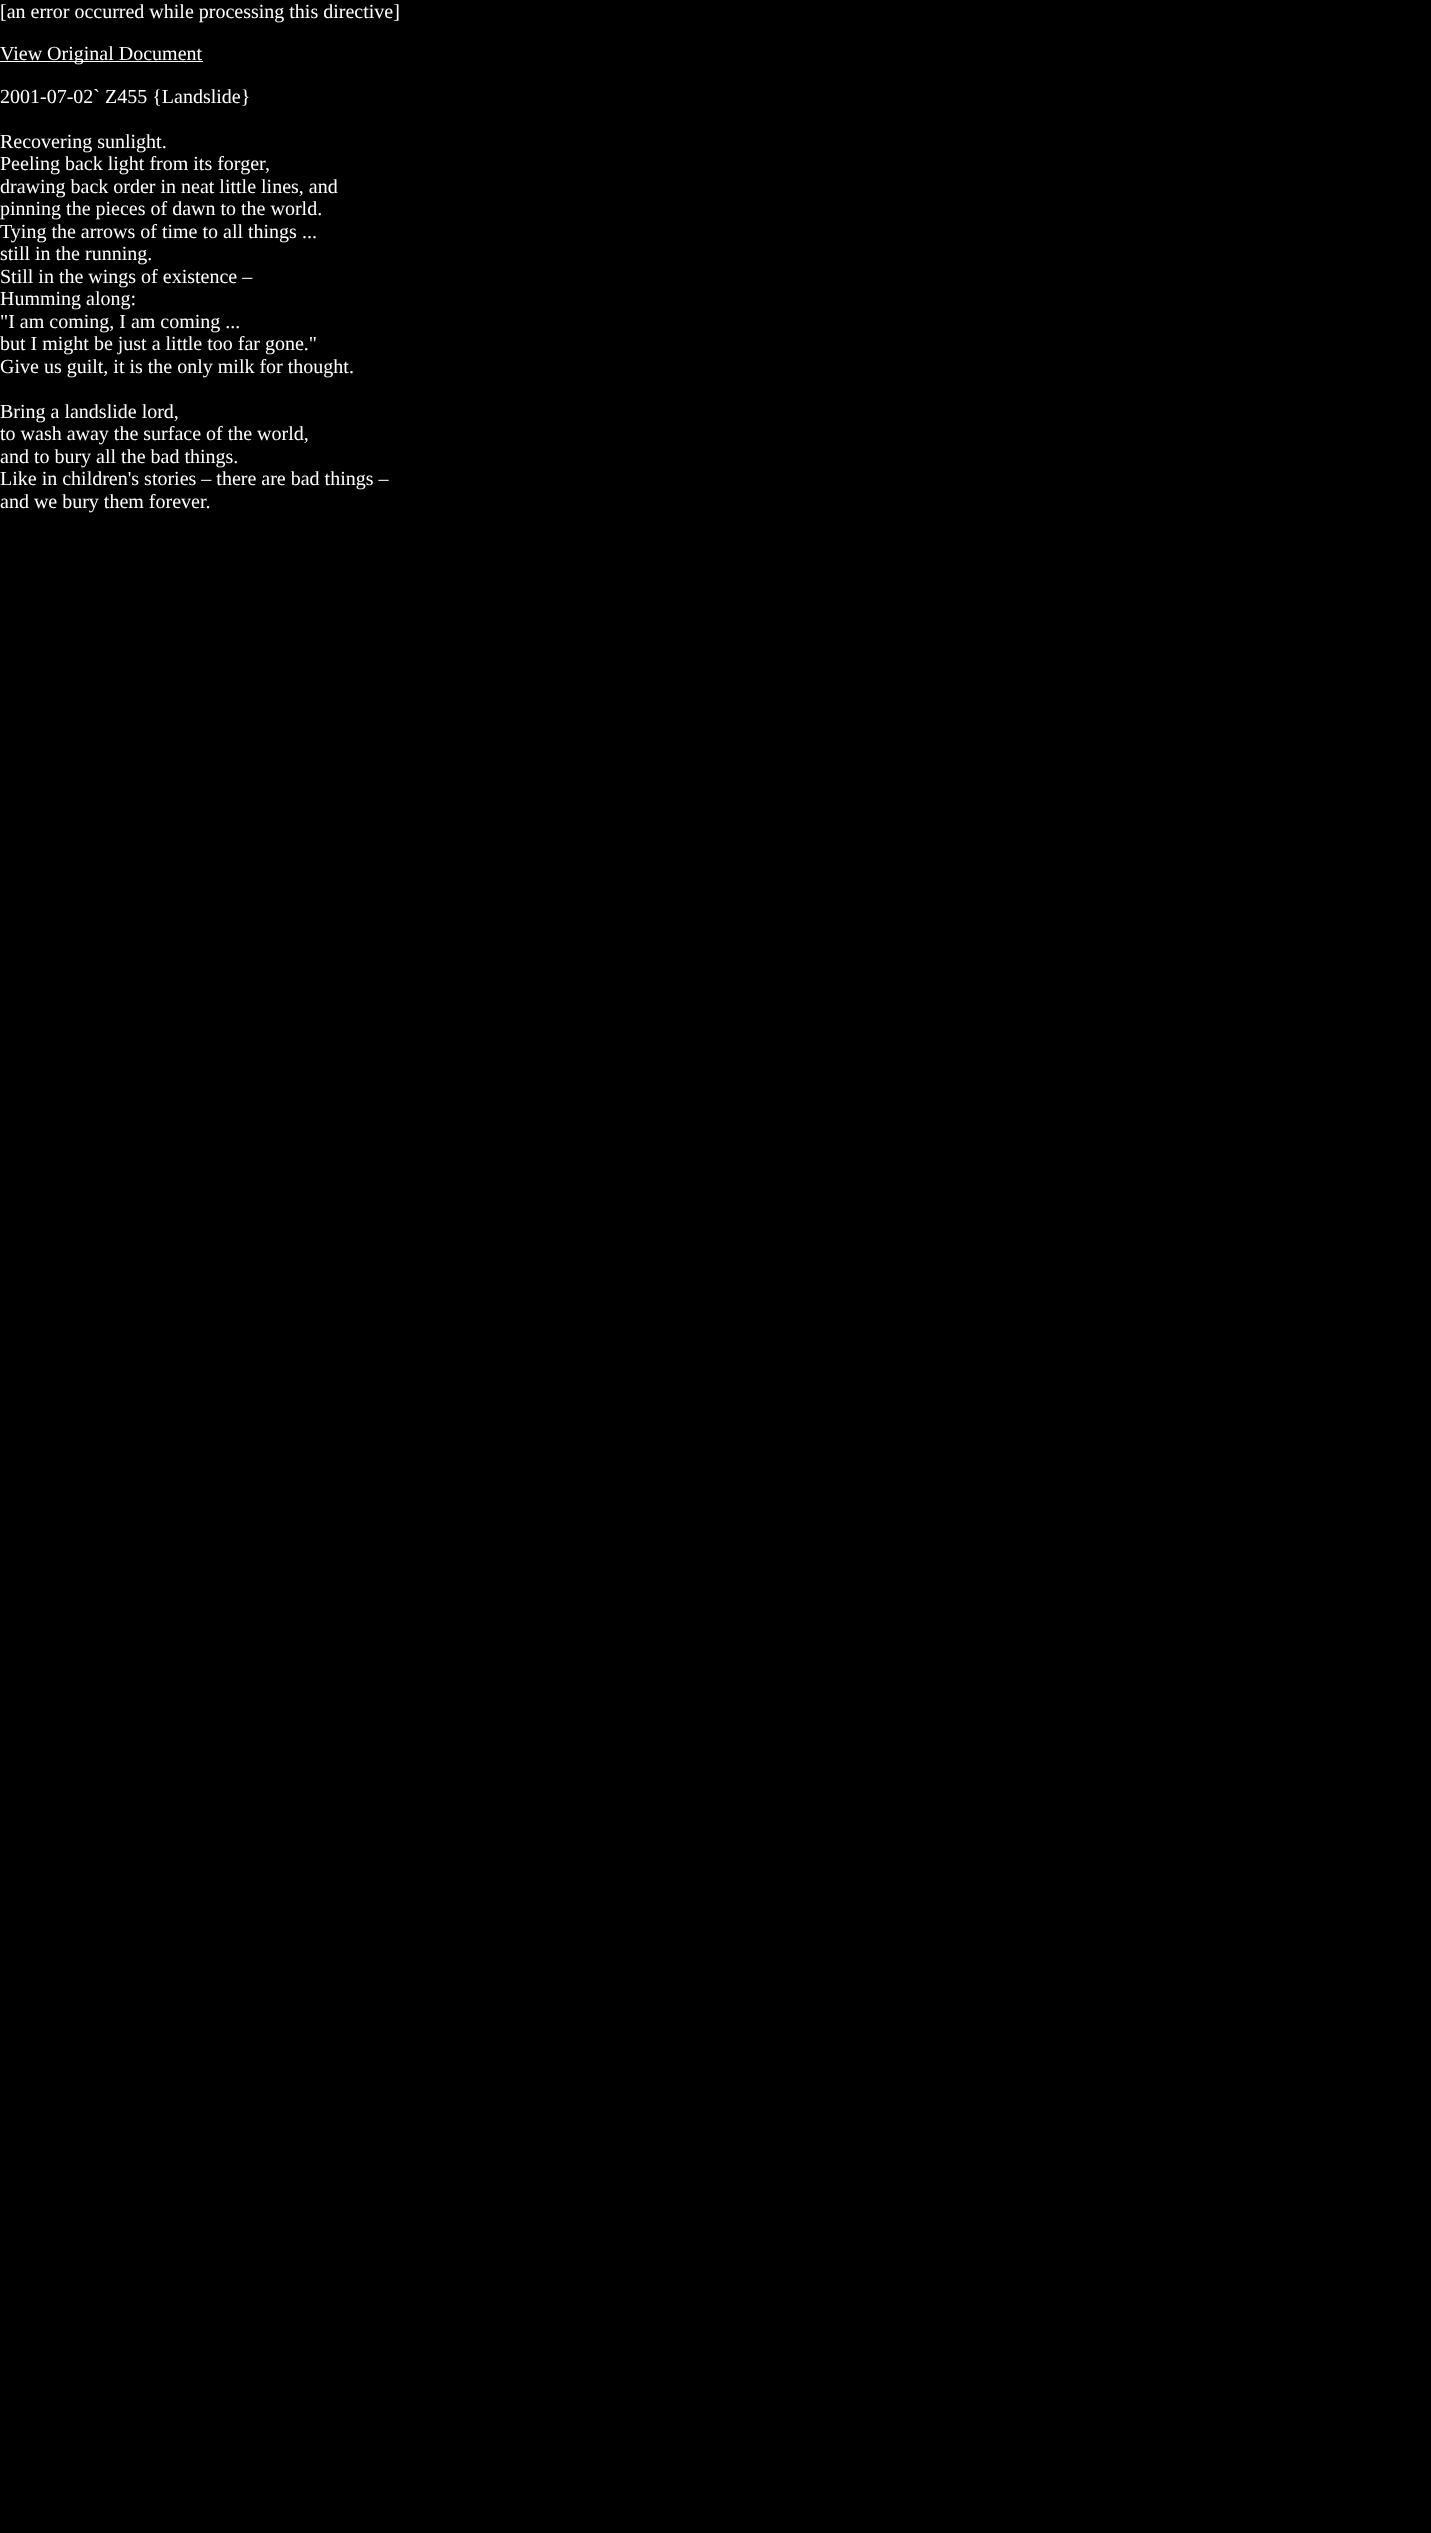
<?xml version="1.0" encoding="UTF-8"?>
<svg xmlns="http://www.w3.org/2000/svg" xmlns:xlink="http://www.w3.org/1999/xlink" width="1431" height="2533">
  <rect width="100%" height="100%" fill="#000000" />
  <rect y="61" width="203" height="1" fill="#ffffff" />
  <text x="0" y="18" style="font-family: Liberation Serif; font-size: 20px; fill: #ffffff">[an error occurred while processing this directive]</text>
  <text x="0" y="60" style="font-family: Liberation Serif; font-size: 20px; fill: #ffffff">View Original Document</text>
  <text x="0" y="103" style="font-family: Liberation Serif; font-size: 20px; fill: #ffffff">2001-07-02` Z455 {Landslide}</text>
  <text x="0" y="148" style="font-family: Liberation Serif; font-size: 20px; fill: #ffffff">Recovering sunlight.</text>
  <text x="0" y="170" style="font-family: Liberation Serif; font-size: 20px; fill: #ffffff">Peeling back light from its forger,</text>
  <text x="0" y="193" style="font-family: Liberation Serif; font-size: 20px; fill: #ffffff">drawing back order in neat little lines, and</text>
  <text x="0" y="215" style="font-family: Liberation Serif; font-size: 20px; fill: #ffffff">pinning the pieces of dawn to the world.</text>
  <text x="0" y="238" style="font-family: Liberation Serif; font-size: 20px; fill: #ffffff">Tying the arrows of time to all things ...</text>
  <text x="0" y="260" style="font-family: Liberation Serif; font-size: 20px; fill: #ffffff">still in the running.</text>
  <text x="0" y="283" style="font-family: Liberation Serif; font-size: 20px; fill: #ffffff">Still in the wings of existence –</text>
  <text x="0" y="305" style="font-family: Liberation Serif; font-size: 20px; fill: #ffffff">Humming along:</text>
  <text x="0" y="328" style="font-family: Liberation Serif; font-size: 20px; fill: #ffffff">"I am coming, I am coming ...</text>
  <text x="0" y="350" style="font-family: Liberation Serif; font-size: 20px; fill: #ffffff">but I might be just a little too far gone."</text>
  <text x="0" y="373" style="font-family: Liberation Serif; font-size: 20px; fill: #ffffff">Give us guilt, it is the only milk for thought.</text>
  <text x="0" y="418" style="font-family: Liberation Serif; font-size: 20px; fill: #ffffff">Bring a landslide lord,</text>
  <text x="0" y="440" style="font-family: Liberation Serif; font-size: 20px; fill: #ffffff">to wash away the surface of the world,</text>
  <text x="0" y="463" style="font-family: Liberation Serif; font-size: 20px; fill: #ffffff">and to bury all the bad things.</text>
  <text x="0" y="485" style="font-family: Liberation Serif; font-size: 20px; fill: #ffffff">Like in children's stories – there are bad things –</text>
  <text x="0" y="508" style="font-family: Liberation Serif; font-size: 20px; fill: #ffffff">and we bury them forever.</text>
</svg>
